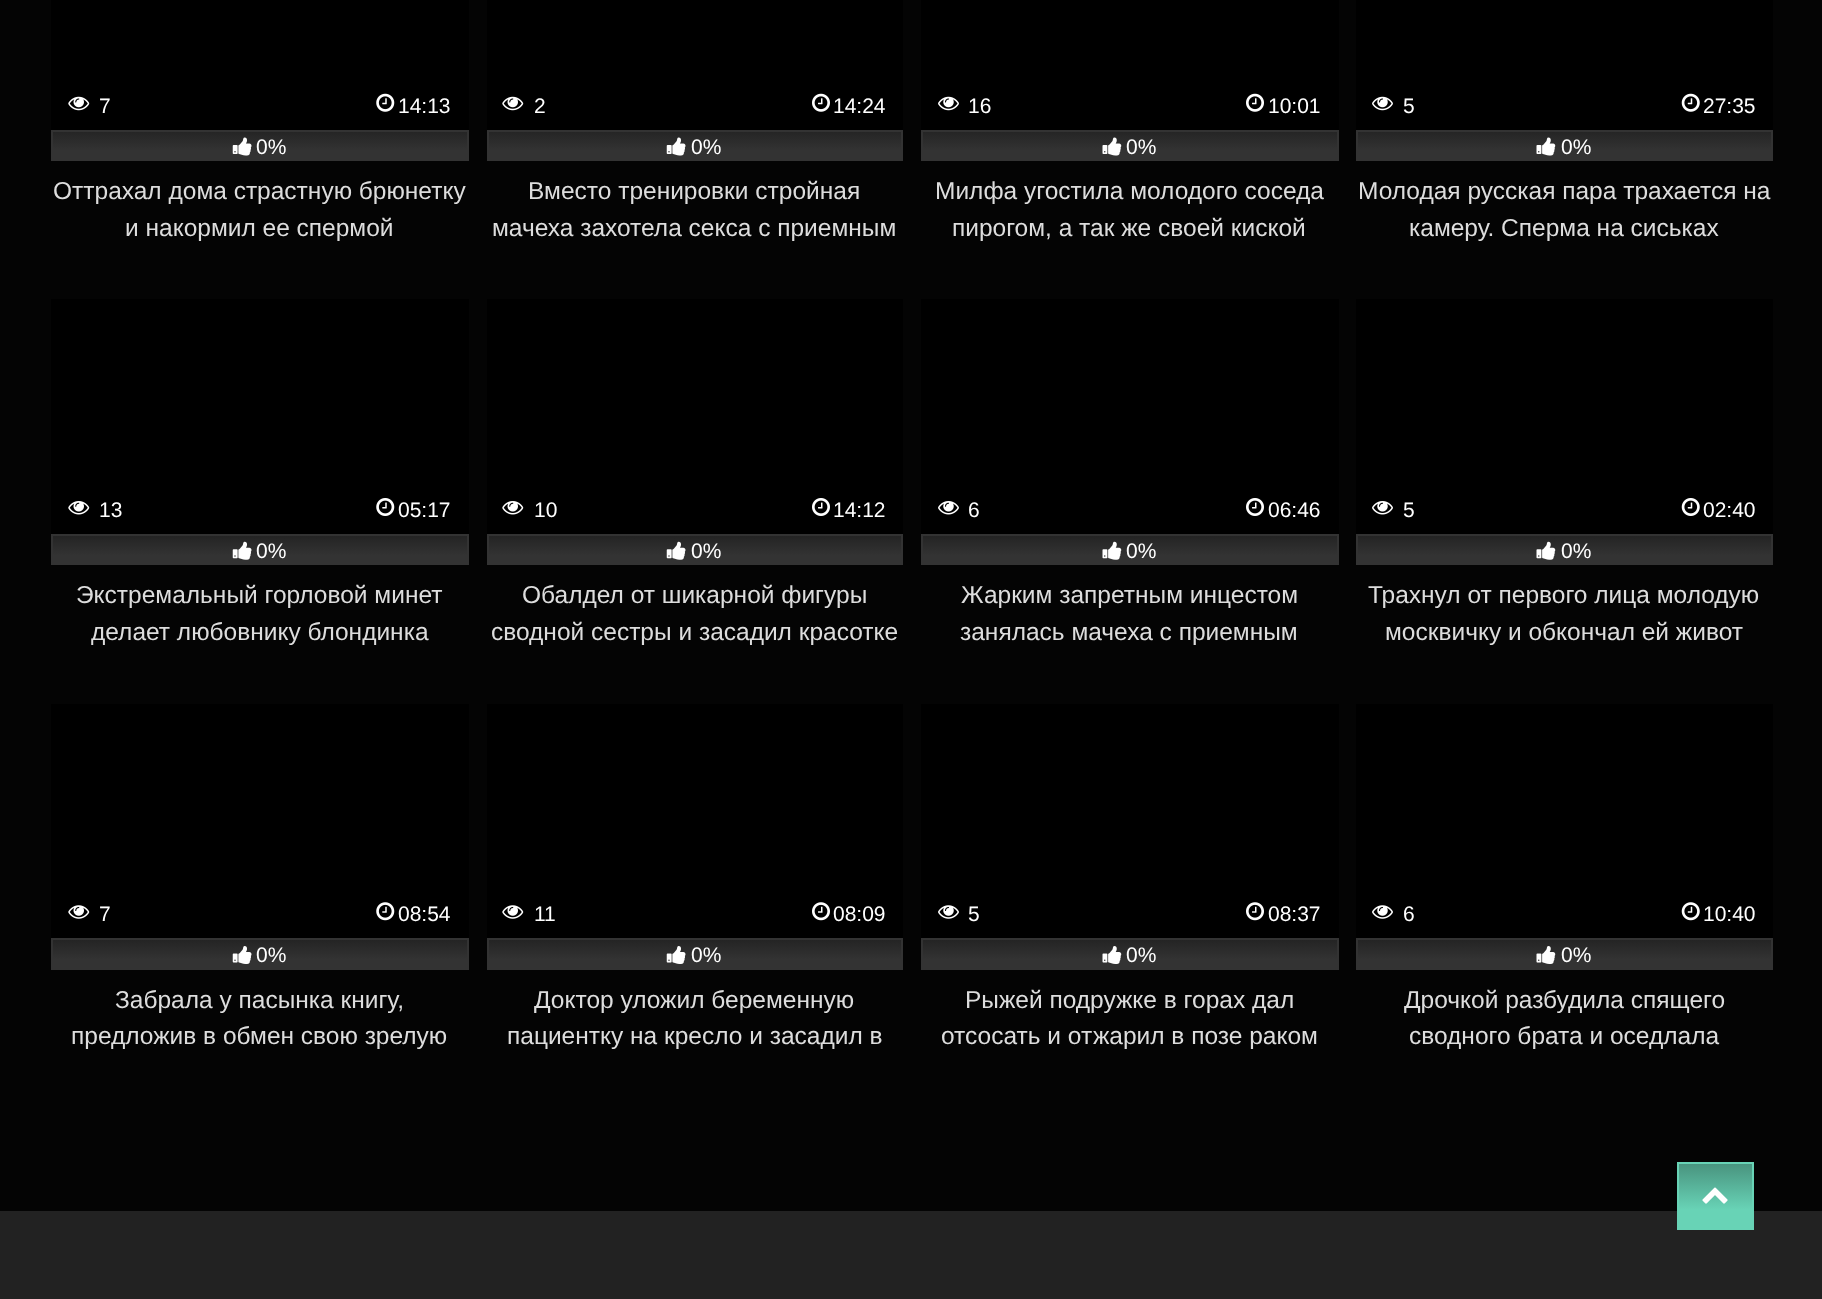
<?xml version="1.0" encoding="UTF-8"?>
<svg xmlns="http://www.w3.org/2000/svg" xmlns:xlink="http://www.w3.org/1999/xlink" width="1822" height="1299">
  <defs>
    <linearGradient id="g1" gradientUnits="userSpaceOnUse" x1="260" y1="131" x2="260" y2="159"><stop offset="0" stop-color="#242424" /><stop offset="0.7" stop-color="#333333" /></linearGradient>
    <linearGradient id="g2" gradientUnits="userSpaceOnUse" x1="695" y1="131" x2="695" y2="159"><stop offset="0" stop-color="#242424" /><stop offset="0.7" stop-color="#333333" /></linearGradient>
    <linearGradient id="g3" gradientUnits="userSpaceOnUse" x1="1130" y1="131" x2="1130" y2="159"><stop offset="0" stop-color="#242424" /><stop offset="0.7" stop-color="#333333" /></linearGradient>
    <linearGradient id="g4" gradientUnits="userSpaceOnUse" x1="1565" y1="131" x2="1565" y2="159"><stop offset="0" stop-color="#242424" /><stop offset="0.7" stop-color="#333333" /></linearGradient>
    <linearGradient id="g5" gradientUnits="userSpaceOnUse" x1="260" y1="536" x2="260" y2="564"><stop offset="0" stop-color="#242424" /><stop offset="0.7" stop-color="#333333" /></linearGradient>
    <linearGradient id="g6" gradientUnits="userSpaceOnUse" x1="695" y1="536" x2="695" y2="564"><stop offset="0" stop-color="#242424" /><stop offset="0.7" stop-color="#333333" /></linearGradient>
    <linearGradient id="g7" gradientUnits="userSpaceOnUse" x1="1130" y1="536" x2="1130" y2="564"><stop offset="0" stop-color="#242424" /><stop offset="0.7" stop-color="#333333" /></linearGradient>
    <linearGradient id="g8" gradientUnits="userSpaceOnUse" x1="1565" y1="536" x2="1565" y2="564"><stop offset="0" stop-color="#242424" /><stop offset="0.7" stop-color="#333333" /></linearGradient>
    <linearGradient id="g9" gradientUnits="userSpaceOnUse" x1="260" y1="940" x2="260" y2="968"><stop offset="0" stop-color="#242424" /><stop offset="0.7" stop-color="#333333" /></linearGradient>
    <linearGradient id="g10" gradientUnits="userSpaceOnUse" x1="695" y1="940" x2="695" y2="968"><stop offset="0" stop-color="#242424" /><stop offset="0.7" stop-color="#333333" /></linearGradient>
    <linearGradient id="g11" gradientUnits="userSpaceOnUse" x1="1130" y1="940" x2="1130" y2="968"><stop offset="0" stop-color="#242424" /><stop offset="0.7" stop-color="#333333" /></linearGradient>
    <linearGradient id="g12" gradientUnits="userSpaceOnUse" x1="1565" y1="940" x2="1565" y2="968"><stop offset="0" stop-color="#242424" /><stop offset="0.7" stop-color="#333333" /></linearGradient>
    <linearGradient id="g13" gradientUnits="userSpaceOnUse" x1="1715" y1="1164" x2="1715" y2="1229"><stop offset="0" stop-color="#49947f" /><stop offset="0.7" stop-color="#68d3b6" /></linearGradient>
  </defs>
  <rect width="100%" height="100%" fill="#040404" />
  <rect x="51" width="418" height="130" fill="#000000" />
  <image x="68" y="96" width="22" height="15" xlink:href="image1.png" />
  <image x="376" y="93" width="19" height="19" xlink:href="image2.png" />
  <rect x="53" y="132" width="414" height="27" fill="url(#g1)" />
  <rect x="52" y="131" width="416" height="29" fill="none" stroke="#333333" stroke-width="2" />
  <image x="232" y="137" width="20" height="19" xlink:href="image3.png" />
  <rect x="487" width="416" height="130" fill="#000000" />
  <image x="502" y="96" width="22" height="15" xlink:href="image1.png" />
  <image x="812" y="93" width="18" height="19" xlink:href="image4.png" />
  <rect x="489" y="132" width="412" height="27" fill="url(#g2)" />
  <rect x="488" y="131" width="414" height="29" fill="none" stroke="#333333" stroke-width="2" />
  <image x="666" y="137" width="20" height="19" xlink:href="image3.png" />
  <rect x="921" width="418" height="130" fill="#000000" />
  <image x="938" y="96" width="21" height="15" xlink:href="image5.png" />
  <image x="1246" y="93" width="18" height="19" xlink:href="image4.png" />
  <rect x="923" y="132" width="414" height="27" fill="url(#g3)" />
  <rect x="922" y="131" width="416" height="29" fill="none" stroke="#333333" stroke-width="2" />
  <image x="1102" y="137" width="20" height="19" xlink:href="image6.png" />
  <rect x="1356" width="417" height="130" fill="#000000" />
  <image x="1372" y="96" width="21" height="15" xlink:href="image7.png" />
  <image x="1681" y="93" width="19" height="19" xlink:href="image8.png" />
  <rect x="1358" y="132" width="413" height="27" fill="url(#g4)" />
  <rect x="1357" y="131" width="415" height="29" fill="none" stroke="#333333" stroke-width="2" />
  <image x="1536" y="137" width="20" height="19" xlink:href="image6.png" />
  <rect x="51" y="299" width="418" height="235" fill="#000000" />
  <image x="68" y="501" width="22" height="14" xlink:href="image9.png" />
  <image x="376" y="498" width="19" height="18" xlink:href="image10.png" />
  <rect x="53" y="536" width="414" height="27" fill="url(#g5)" />
  <rect x="52" y="535" width="416" height="29" fill="none" stroke="#333333" stroke-width="2" />
  <image x="232" y="541" width="20" height="19" xlink:href="image11.png" />
  <rect x="487" y="299" width="416" height="235" fill="#000000" />
  <image x="502" y="501" width="22" height="14" xlink:href="image9.png" />
  <image x="812" y="498" width="18" height="18" xlink:href="image12.png" />
  <rect x="489" y="536" width="412" height="27" fill="url(#g6)" />
  <rect x="488" y="535" width="414" height="29" fill="none" stroke="#333333" stroke-width="2" />
  <image x="666" y="541" width="20" height="19" xlink:href="image11.png" />
  <rect x="921" y="299" width="418" height="235" fill="#000000" />
  <image x="938" y="501" width="21" height="14" xlink:href="image13.png" />
  <image x="1246" y="498" width="18" height="18" xlink:href="image12.png" />
  <rect x="923" y="536" width="414" height="27" fill="url(#g7)" />
  <rect x="922" y="535" width="416" height="29" fill="none" stroke="#333333" stroke-width="2" />
  <image x="1102" y="541" width="20" height="19" xlink:href="image14.png" />
  <rect x="1356" y="299" width="417" height="235" fill="#000000" />
  <image x="1372" y="501" width="21" height="14" xlink:href="image15.png" />
  <image x="1681" y="498" width="19" height="18" xlink:href="image16.png" />
  <rect x="1358" y="536" width="413" height="27" fill="url(#g8)" />
  <rect x="1357" y="535" width="415" height="29" fill="none" stroke="#333333" stroke-width="2" />
  <image x="1536" y="541" width="20" height="19" xlink:href="image14.png" />
  <rect x="51" y="704" width="418" height="234" fill="#000000" />
  <image x="68" y="905" width="22" height="14" xlink:href="image17.png" />
  <image x="376" y="902" width="19" height="19" xlink:href="image18.png" />
  <rect x="53" y="940" width="414" height="28" fill="url(#g9)" />
  <rect x="52" y="939" width="416" height="30" fill="none" stroke="#333333" stroke-width="2" />
  <image x="232" y="946" width="20" height="18" xlink:href="image19.png" />
  <rect x="487" y="704" width="416" height="234" fill="#000000" />
  <image x="502" y="905" width="22" height="14" xlink:href="image17.png" />
  <image x="812" y="902" width="18" height="19" xlink:href="image20.png" />
  <rect x="489" y="940" width="412" height="28" fill="url(#g10)" />
  <rect x="488" y="939" width="414" height="30" fill="none" stroke="#333333" stroke-width="2" />
  <image x="666" y="946" width="20" height="18" xlink:href="image19.png" />
  <rect x="921" y="704" width="418" height="234" fill="#000000" />
  <image x="938" y="905" width="21" height="14" xlink:href="image21.png" />
  <image x="1246" y="902" width="18" height="19" xlink:href="image20.png" />
  <rect x="923" y="940" width="414" height="28" fill="url(#g11)" />
  <rect x="922" y="939" width="416" height="30" fill="none" stroke="#333333" stroke-width="2" />
  <image x="1102" y="946" width="20" height="18" xlink:href="image22.png" />
  <rect x="1356" y="704" width="417" height="234" fill="#000000" />
  <image x="1372" y="905" width="21" height="14" xlink:href="image23.png" />
  <image x="1681" y="902" width="19" height="19" xlink:href="image24.png" />
  <rect x="1358" y="940" width="413" height="28" fill="url(#g12)" />
  <rect x="1357" y="939" width="415" height="30" fill="none" stroke="#333333" stroke-width="2" />
  <image x="1536" y="946" width="20" height="18" xlink:href="image22.png" />
  <rect y="1211" width="1822" height="88" fill="#222222" />
  <rect x="1679" y="1164" width="73" height="64" fill="url(#g13)" />
  <rect x="1678" y="1163" width="75" height="66" fill="none" stroke="#68d3b6" stroke-width="2" />
  <image x="1702" y="1187" width="26" height="17" xlink:href="image25.png" />
  <text x="99" y="113" style="font-family: Liberation Sans; font-size: 21px; fill: #ffffff">7</text>
  <text x="398" y="113" style="font-family: Liberation Sans; font-size: 21px; fill: #ffffff">14:13</text>
  <text x="256" y="154" style="font-family: Liberation Sans; font-size: 21px; fill: #ffffff">0%</text>
  <text x="53" y="199" style="font-family: Liberation Sans; font-size: 24.5px; fill: #dddddd">Оттрахал дома страстную брюнетку</text>
  <text x="125" y="236" style="font-family: Liberation Sans; font-size: 24.5px; fill: #dddddd">и накормил ее спермой</text>
  <text x="534" y="113" style="font-family: Liberation Sans; font-size: 21px; fill: #ffffff">2</text>
  <text x="833" y="113" style="font-family: Liberation Sans; font-size: 21px; fill: #ffffff">14:24</text>
  <text x="691" y="154" style="font-family: Liberation Sans; font-size: 21px; fill: #ffffff">0%</text>
  <text x="528" y="199" style="font-family: Liberation Sans; font-size: 24.5px; fill: #dddddd">Вместо тренировки стройная</text>
  <text x="492" y="236" style="font-family: Liberation Sans; font-size: 24.5px; fill: #dddddd">мачеха захотела секса с приемным</text>
  <text x="968" y="113" style="font-family: Liberation Sans; font-size: 21px; fill: #ffffff">16</text>
  <text x="1268" y="113" style="font-family: Liberation Sans; font-size: 21px; fill: #ffffff">10:01</text>
  <text x="1126" y="154" style="font-family: Liberation Sans; font-size: 21px; fill: #ffffff">0%</text>
  <text x="935" y="199" style="font-family: Liberation Sans; font-size: 24.5px; fill: #dddddd">Милфа угостила молодого соседа</text>
  <text x="952" y="236" style="font-family: Liberation Sans; font-size: 24.5px; fill: #dddddd">пирогом, а так же своей киской</text>
  <text x="1403" y="113" style="font-family: Liberation Sans; font-size: 21px; fill: #ffffff">5</text>
  <text x="1703" y="113" style="font-family: Liberation Sans; font-size: 21px; fill: #ffffff">27:35</text>
  <text x="1561" y="154" style="font-family: Liberation Sans; font-size: 21px; fill: #ffffff">0%</text>
  <text x="1358" y="199" style="font-family: Liberation Sans; font-size: 24.5px; fill: #dddddd">Молодая русская пара трахается на</text>
  <text x="1409" y="236" style="font-family: Liberation Sans; font-size: 24.5px; fill: #dddddd">камеру. Сперма на сиськах</text>
  <text x="99" y="517" style="font-family: Liberation Sans; font-size: 21px; fill: #ffffff">13</text>
  <text x="398" y="517" style="font-family: Liberation Sans; font-size: 21px; fill: #ffffff">05:17</text>
  <text x="256" y="558" style="font-family: Liberation Sans; font-size: 21px; fill: #ffffff">0%</text>
  <text x="76" y="603" style="font-family: Liberation Sans; font-size: 24.5px; fill: #dddddd">Экстремальный горловой минет</text>
  <text x="91" y="640" style="font-family: Liberation Sans; font-size: 24.5px; fill: #dddddd">делает любовнику блондинка</text>
  <text x="534" y="517" style="font-family: Liberation Sans; font-size: 21px; fill: #ffffff">10</text>
  <text x="833" y="517" style="font-family: Liberation Sans; font-size: 21px; fill: #ffffff">14:12</text>
  <text x="691" y="558" style="font-family: Liberation Sans; font-size: 21px; fill: #ffffff">0%</text>
  <text x="522" y="603" style="font-family: Liberation Sans; font-size: 24.5px; fill: #dddddd">Обалдел от шикарной фигуры</text>
  <text x="491" y="640" style="font-family: Liberation Sans; font-size: 24.5px; fill: #dddddd">сводной сестры и засадил красотке</text>
  <text x="968" y="517" style="font-family: Liberation Sans; font-size: 21px; fill: #ffffff">6</text>
  <text x="1268" y="517" style="font-family: Liberation Sans; font-size: 21px; fill: #ffffff">06:46</text>
  <text x="1126" y="558" style="font-family: Liberation Sans; font-size: 21px; fill: #ffffff">0%</text>
  <text x="961" y="603" style="font-family: Liberation Sans; font-size: 24.5px; fill: #dddddd">Жарким запретным инцестом</text>
  <text x="960" y="640" style="font-family: Liberation Sans; font-size: 24.5px; fill: #dddddd">занялась мачеха с приемным</text>
  <text x="1403" y="517" style="font-family: Liberation Sans; font-size: 21px; fill: #ffffff">5</text>
  <text x="1703" y="517" style="font-family: Liberation Sans; font-size: 21px; fill: #ffffff">02:40</text>
  <text x="1561" y="558" style="font-family: Liberation Sans; font-size: 21px; fill: #ffffff">0%</text>
  <text x="1368" y="603" style="font-family: Liberation Sans; font-size: 24.5px; fill: #dddddd">Трахнул от первого лица молодую</text>
  <text x="1385" y="640" style="font-family: Liberation Sans; font-size: 24.5px; fill: #dddddd">москвичку и обкончал ей живот</text>
  <text x="99" y="921" style="font-family: Liberation Sans; font-size: 21px; fill: #ffffff">7</text>
  <text x="398" y="921" style="font-family: Liberation Sans; font-size: 21px; fill: #ffffff">08:54</text>
  <text x="256" y="962" style="font-family: Liberation Sans; font-size: 21px; fill: #ffffff">0%</text>
  <text x="115" y="1008" style="font-family: Liberation Sans; font-size: 24.5px; fill: #dddddd">Забрала у пасынка книгу,</text>
  <text x="71" y="1044" style="font-family: Liberation Sans; font-size: 24.5px; fill: #dddddd">предложив в обмен свою зрелую</text>
  <text x="534" y="921" style="font-family: Liberation Sans; font-size: 21px; fill: #ffffff">11</text>
  <text x="833" y="921" style="font-family: Liberation Sans; font-size: 21px; fill: #ffffff">08:09</text>
  <text x="691" y="962" style="font-family: Liberation Sans; font-size: 21px; fill: #ffffff">0%</text>
  <text x="534" y="1008" style="font-family: Liberation Sans; font-size: 24.5px; fill: #dddddd">Доктор уложил беременную</text>
  <text x="507" y="1044" style="font-family: Liberation Sans; font-size: 24.5px; fill: #dddddd">пациентку на кресло и засадил в</text>
  <text x="968" y="921" style="font-family: Liberation Sans; font-size: 21px; fill: #ffffff">5</text>
  <text x="1268" y="921" style="font-family: Liberation Sans; font-size: 21px; fill: #ffffff">08:37</text>
  <text x="1126" y="962" style="font-family: Liberation Sans; font-size: 21px; fill: #ffffff">0%</text>
  <text x="965" y="1008" style="font-family: Liberation Sans; font-size: 24.5px; fill: #dddddd">Рыжей подружке в горах дал</text>
  <text x="941" y="1044" style="font-family: Liberation Sans; font-size: 24.5px; fill: #dddddd">отсосать и отжарил в позе раком</text>
  <text x="1403" y="921" style="font-family: Liberation Sans; font-size: 21px; fill: #ffffff">6</text>
  <text x="1703" y="921" style="font-family: Liberation Sans; font-size: 21px; fill: #ffffff">10:40</text>
  <text x="1561" y="962" style="font-family: Liberation Sans; font-size: 21px; fill: #ffffff">0%</text>
  <text x="1404" y="1008" style="font-family: Liberation Sans; font-size: 24.5px; fill: #dddddd">Дрочкой разбудила спящего</text>
  <text x="1409" y="1044" style="font-family: Liberation Sans; font-size: 24.5px; fill: #dddddd">сводного брата и оседлала</text>
</svg>
